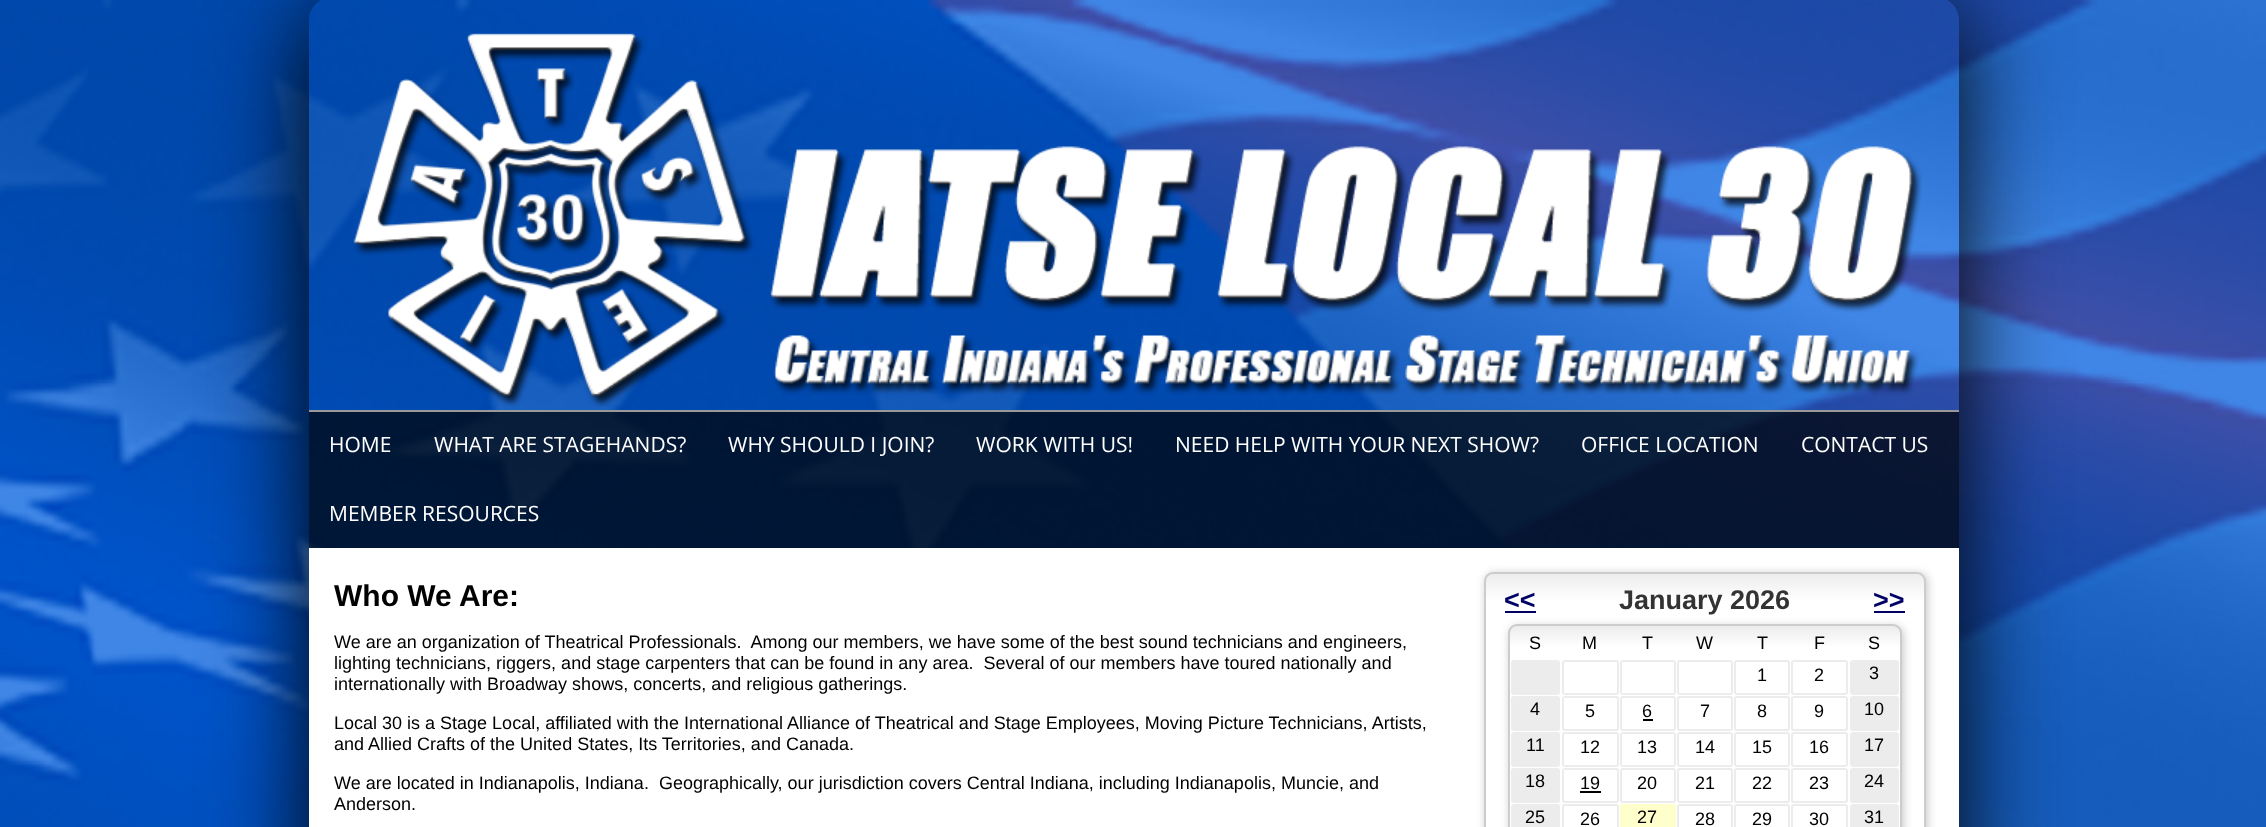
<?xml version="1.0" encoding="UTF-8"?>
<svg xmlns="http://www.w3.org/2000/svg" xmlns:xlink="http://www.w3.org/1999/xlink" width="2266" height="827">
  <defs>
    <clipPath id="clip1"><path d="M 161 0 h 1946 v 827 h -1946 z m 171 -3 h 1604 c 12.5 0 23 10.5 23 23 v 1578 h -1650 v -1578 c 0 -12.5 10.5 -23 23 -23 z" clip-rule="evenodd" /></clipPath>
    <clipPath id="clip2"><rect x="1484" y="572" width="442" height="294" rx="9" /></clipPath>
    <linearGradient id="g1" gradientUnits="userSpaceOnUse" x1="1705" y1="573" x2="1705" y2="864"><stop offset="0" stop-color="#ececec" /><stop offset="0.1" stop-color="#ffffff" /></linearGradient>
    <clipPath id="clip3"><rect x="1508" y="624" width="394" height="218" rx="9" /></clipPath>
    <linearGradient id="g2" gradientUnits="userSpaceOnUse" x1="1705" y1="626" x2="1705" y2="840"><stop offset="0" stop-color="#ececec" /><stop offset="0.1" stop-color="#ffffff" /></linearGradient>
  </defs>
  <rect width="100%" height="100%" fill="#ffffff" />
  <image x="0" y="0" width="2266" height="827" xlink:href="image1.png" />
  <g clip-path="url(#clip1)">
    <rect x="309" y="11" width="1650" height="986" rx="23" fill="#000000" filter="blur(49px)" />
  </g>
  <image x="353" y="33" width="1569" height="374" xlink:href="image2.png" />
  <rect x="309" y="412" width="1650" height="136" fill="#000000" fill-opacity="0.7" />
  <rect x="309" y="410" width="1650" height="2" fill="#999999" />
  <rect x="309" y="548" width="1650" height="279" fill="#ffffff" />
  <rect x="1485" y="573" width="443" height="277" rx="9" fill="#cccccc" filter="blur(4.5px)" />
  <g clip-path="url(#clip2)">
    <rect x="1484" y="573" width="442" height="254" fill="url(#g1)" />
  </g>
  <rect x="1485" y="573" width="440" height="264" rx="8" fill="none" stroke="#cccccc" stroke-width="2" />
  <rect x="1509" y="626" width="395" height="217" rx="9" fill="#cccccc" filter="blur(4.5px)" />
  <rect x="1505" y="611" width="31" height="2" fill="#000066" />
  <rect x="1874" y="611" width="31" height="2" fill="#000066" />
  <g clip-path="url(#clip3)">
    <rect x="1508" y="626" width="394" height="201" fill="url(#g2)" />
  </g>
  <rect x="1509" y="625" width="392" height="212" rx="8" fill="none" stroke="#cccccc" stroke-width="2" />
  <rect x="1511" y="660" width="49" height="35" rx="3" fill="#ececec" />
  <rect x="1563" y="661" width="55" height="33" rx="2" fill="none" stroke="#ececec" stroke-width="2" />
  <rect x="1621" y="661" width="54" height="33" rx="2" fill="none" stroke="#ececec" stroke-width="2" />
  <rect x="1678" y="661" width="54" height="33" rx="2" fill="none" stroke="#ececec" stroke-width="2" />
  <rect x="1735" y="661" width="54" height="33" rx="2" fill="none" stroke="#ececec" stroke-width="2" />
  <rect x="1792" y="661" width="55" height="33" rx="2" fill="none" stroke="#ececec" stroke-width="2" />
  <rect x="1850" y="660" width="49" height="35" rx="3" fill="#ececec" />
  <rect x="1511" y="696" width="49" height="35" rx="3" fill="#ececec" />
  <rect x="1563" y="697" width="55" height="33" rx="2" fill="none" stroke="#ececec" stroke-width="2" />
  <rect x="1621" y="697" width="54" height="33" rx="2" fill="none" stroke="#ececec" stroke-width="2" />
  <rect x="1643" y="719" width="10" height="2" fill="#000000" />
  <rect x="1678" y="697" width="54" height="33" rx="2" fill="none" stroke="#ececec" stroke-width="2" />
  <rect x="1735" y="697" width="54" height="33" rx="2" fill="none" stroke="#ececec" stroke-width="2" />
  <rect x="1792" y="697" width="55" height="33" rx="2" fill="none" stroke="#ececec" stroke-width="2" />
  <rect x="1850" y="696" width="49" height="35" rx="3" fill="#ececec" />
  <rect x="1511" y="732" width="49" height="35" rx="3" fill="#ececec" />
  <rect x="1563" y="733" width="55" height="33" rx="2" fill="none" stroke="#ececec" stroke-width="2" />
  <rect x="1621" y="733" width="54" height="33" rx="2" fill="none" stroke="#ececec" stroke-width="2" />
  <rect x="1678" y="733" width="54" height="33" rx="2" fill="none" stroke="#ececec" stroke-width="2" />
  <rect x="1735" y="733" width="54" height="33" rx="2" fill="none" stroke="#ececec" stroke-width="2" />
  <rect x="1792" y="733" width="55" height="33" rx="2" fill="none" stroke="#ececec" stroke-width="2" />
  <rect x="1850" y="732" width="49" height="35" rx="3" fill="#ececec" />
  <rect x="1511" y="768" width="49" height="35" rx="3" fill="#ececec" />
  <rect x="1563" y="769" width="55" height="33" rx="2" fill="none" stroke="#ececec" stroke-width="2" />
  <rect x="1580" y="791" width="21" height="2" fill="#000000" />
  <rect x="1621" y="769" width="54" height="33" rx="2" fill="none" stroke="#ececec" stroke-width="2" />
  <rect x="1678" y="769" width="54" height="33" rx="2" fill="none" stroke="#ececec" stroke-width="2" />
  <rect x="1735" y="769" width="54" height="33" rx="2" fill="none" stroke="#ececec" stroke-width="2" />
  <rect x="1792" y="769" width="55" height="33" rx="2" fill="none" stroke="#ececec" stroke-width="2" />
  <rect x="1850" y="768" width="49" height="35" rx="3" fill="#ececec" />
  <rect x="1511" y="804" width="49" height="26" rx="3" fill="#ececec" />
  <rect x="1563" y="805" width="55" height="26" rx="2" fill="none" stroke="#ececec" stroke-width="2" />
  <rect x="1620" y="804" width="56" height="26" rx="3" fill="#ffffcc" />
  <rect x="1678" y="805" width="54" height="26" rx="2" fill="none" stroke="#ececec" stroke-width="2" />
  <rect x="1735" y="805" width="54" height="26" rx="2" fill="none" stroke="#ececec" stroke-width="2" />
  <rect x="1792" y="805" width="55" height="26" rx="2" fill="none" stroke="#ececec" stroke-width="2" />
  <rect x="1850" y="804" width="49" height="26" rx="3" fill="#ececec" />
  <text x="329" y="452" style="font-family: Open Sans; font-size: 21px; fill: #ffffff">HOME</text>
  <text x="434" y="452" style="font-family: Open Sans; font-size: 21px; fill: #ffffff">WHAT ARE STAGEHANDS?</text>
  <text x="728" y="452" style="font-family: Open Sans; font-size: 21px; fill: #ffffff">WHY SHOULD I JOIN?</text>
  <text x="976" y="452" style="font-family: Open Sans; font-size: 21px; fill: #ffffff">WORK WITH US!</text>
  <text x="1175" y="452" style="font-family: Open Sans; font-size: 21px; fill: #ffffff">NEED HELP WITH YOUR NEXT SHOW?</text>
  <text x="1581" y="452" style="font-family: Open Sans; font-size: 21px; fill: #ffffff">OFFICE LOCATION</text>
  <text x="1801" y="452" style="font-family: Open Sans; font-size: 21px; fill: #ffffff">CONTACT US</text>
  <text x="329" y="521" style="font-family: Open Sans; font-size: 21px; fill: #ffffff">MEMBER RESOURCES</text>
  <text x="334" y="606" style="font-family: Liberation Sans; font-size: 30px; font-weight: bold; fill: #000000">Who We Are:</text>
  <text x="334" y="648" style="font-family: Liberation Sans; font-size: 18px; fill: #000000" xml:space="preserve">We are an organization of Theatrical Professionals.  Among our members, we have some of the best sound technicians and engineers,</text>
  <text x="334" y="669" style="font-family: Liberation Sans; font-size: 18px; fill: #000000" xml:space="preserve">lighting technicians, riggers, and stage carpenters that can be found in any area.  Several of our members have toured nationally and</text>
  <text x="334" y="690" style="font-family: Liberation Sans; font-size: 18px; fill: #000000">internationally with Broadway shows, concerts, and religious gatherings.</text>
  <text x="334" y="729" style="font-family: Liberation Sans; font-size: 18px; fill: #000000">Local 30 is a Stage Local, affiliated with the International Alliance of Theatrical and Stage Employees, Moving Picture Technicians, Artists,</text>
  <text x="334" y="750" style="font-family: Liberation Sans; font-size: 18px; fill: #000000">and Allied Crafts of the United States, Its Territories, and Canada.</text>
  <text x="334" y="789" style="font-family: Liberation Sans; font-size: 18px; fill: #000000" xml:space="preserve">We are located in Indianapolis, Indiana.  Geographically, our jurisdiction covers Central Indiana, including Indianapolis, Muncie, and</text>
  <text x="334" y="810" style="font-family: Liberation Sans; font-size: 18px; fill: #000000">Anderson.</text>
  <text x="1504" y="609" style="font-family: Liberation Sans; font-size: 27px; font-weight: bold; fill: #000066">&lt;&lt;</text>
  <text x="1619" y="609" style="font-family: Liberation Sans; font-size: 27px; font-weight: bold; fill: #333333">January 2026</text>
  <text x="1873" y="609" style="font-family: Liberation Sans; font-size: 27px; font-weight: bold; fill: #000066">&gt;&gt;</text>
  <text x="1529" y="649" style="font-family: Liberation Sans; font-size: 18px; fill: #000000">S</text>
  <text x="1582" y="649" style="font-family: Liberation Sans; font-size: 18px; fill: #000000">M</text>
  <text x="1642" y="649" style="font-family: Liberation Sans; font-size: 18px; fill: #000000">T</text>
  <text x="1696" y="649" style="font-family: Liberation Sans; font-size: 18px; fill: #000000">W</text>
  <text x="1757" y="649" style="font-family: Liberation Sans; font-size: 18px; fill: #000000">T</text>
  <text x="1814" y="649" style="font-family: Liberation Sans; font-size: 18px; fill: #000000">F</text>
  <text x="1868" y="649" style="font-family: Liberation Sans; font-size: 18px; fill: #000000">S</text>
  <text x="1757" y="681" style="font-family: Liberation Sans; font-size: 18px; fill: #000000">1</text>
  <text x="1814" y="681" style="font-family: Liberation Sans; font-size: 18px; fill: #000000">2</text>
  <text x="1869" y="679" style="font-family: Liberation Sans; font-size: 18px; fill: #000000">3</text>
  <text x="1530" y="715" style="font-family: Liberation Sans; font-size: 18px; fill: #000000">4</text>
  <text x="1585" y="717" style="font-family: Liberation Sans; font-size: 18px; fill: #000000">5</text>
  <text x="1642" y="717" style="font-family: Liberation Sans; font-size: 18px; fill: #000000">6</text>
  <text x="1700" y="717" style="font-family: Liberation Sans; font-size: 18px; fill: #000000">7</text>
  <text x="1757" y="717" style="font-family: Liberation Sans; font-size: 18px; fill: #000000">8</text>
  <text x="1814" y="717" style="font-family: Liberation Sans; font-size: 18px; fill: #000000">9</text>
  <text x="1864" y="715" style="font-family: Liberation Sans; font-size: 18px; fill: #000000">10</text>
  <text x="1526" y="751" style="font-family: Liberation Sans; font-size: 18px; fill: #000000">11</text>
  <text x="1580" y="753" style="font-family: Liberation Sans; font-size: 18px; fill: #000000">12</text>
  <text x="1637" y="753" style="font-family: Liberation Sans; font-size: 18px; fill: #000000">13</text>
  <text x="1695" y="753" style="font-family: Liberation Sans; font-size: 18px; fill: #000000">14</text>
  <text x="1752" y="753" style="font-family: Liberation Sans; font-size: 18px; fill: #000000">15</text>
  <text x="1809" y="753" style="font-family: Liberation Sans; font-size: 18px; fill: #000000">16</text>
  <text x="1864" y="751" style="font-family: Liberation Sans; font-size: 18px; fill: #000000">17</text>
  <text x="1525" y="787" style="font-family: Liberation Sans; font-size: 18px; fill: #000000">18</text>
  <text x="1580" y="789" style="font-family: Liberation Sans; font-size: 18px; fill: #000000">19</text>
  <text x="1637" y="789" style="font-family: Liberation Sans; font-size: 18px; fill: #000000">20</text>
  <text x="1695" y="789" style="font-family: Liberation Sans; font-size: 18px; fill: #000000">21</text>
  <text x="1752" y="789" style="font-family: Liberation Sans; font-size: 18px; fill: #000000">22</text>
  <text x="1809" y="789" style="font-family: Liberation Sans; font-size: 18px; fill: #000000">23</text>
  <text x="1864" y="787" style="font-family: Liberation Sans; font-size: 18px; fill: #000000">24</text>
  <text x="1525" y="823" style="font-family: Liberation Sans; font-size: 18px; fill: #000000">25</text>
  <text x="1580" y="825" style="font-family: Liberation Sans; font-size: 18px; fill: #000000">26</text>
  <text x="1637" y="823" style="font-family: Liberation Sans; font-size: 18px; fill: #000000">27</text>
  <text x="1695" y="825" style="font-family: Liberation Sans; font-size: 18px; fill: #000000">28</text>
  <text x="1752" y="825" style="font-family: Liberation Sans; font-size: 18px; fill: #000000">29</text>
  <text x="1809" y="825" style="font-family: Liberation Sans; font-size: 18px; fill: #000000">30</text>
  <text x="1864" y="823" style="font-family: Liberation Sans; font-size: 18px; fill: #000000">31</text>
</svg>
